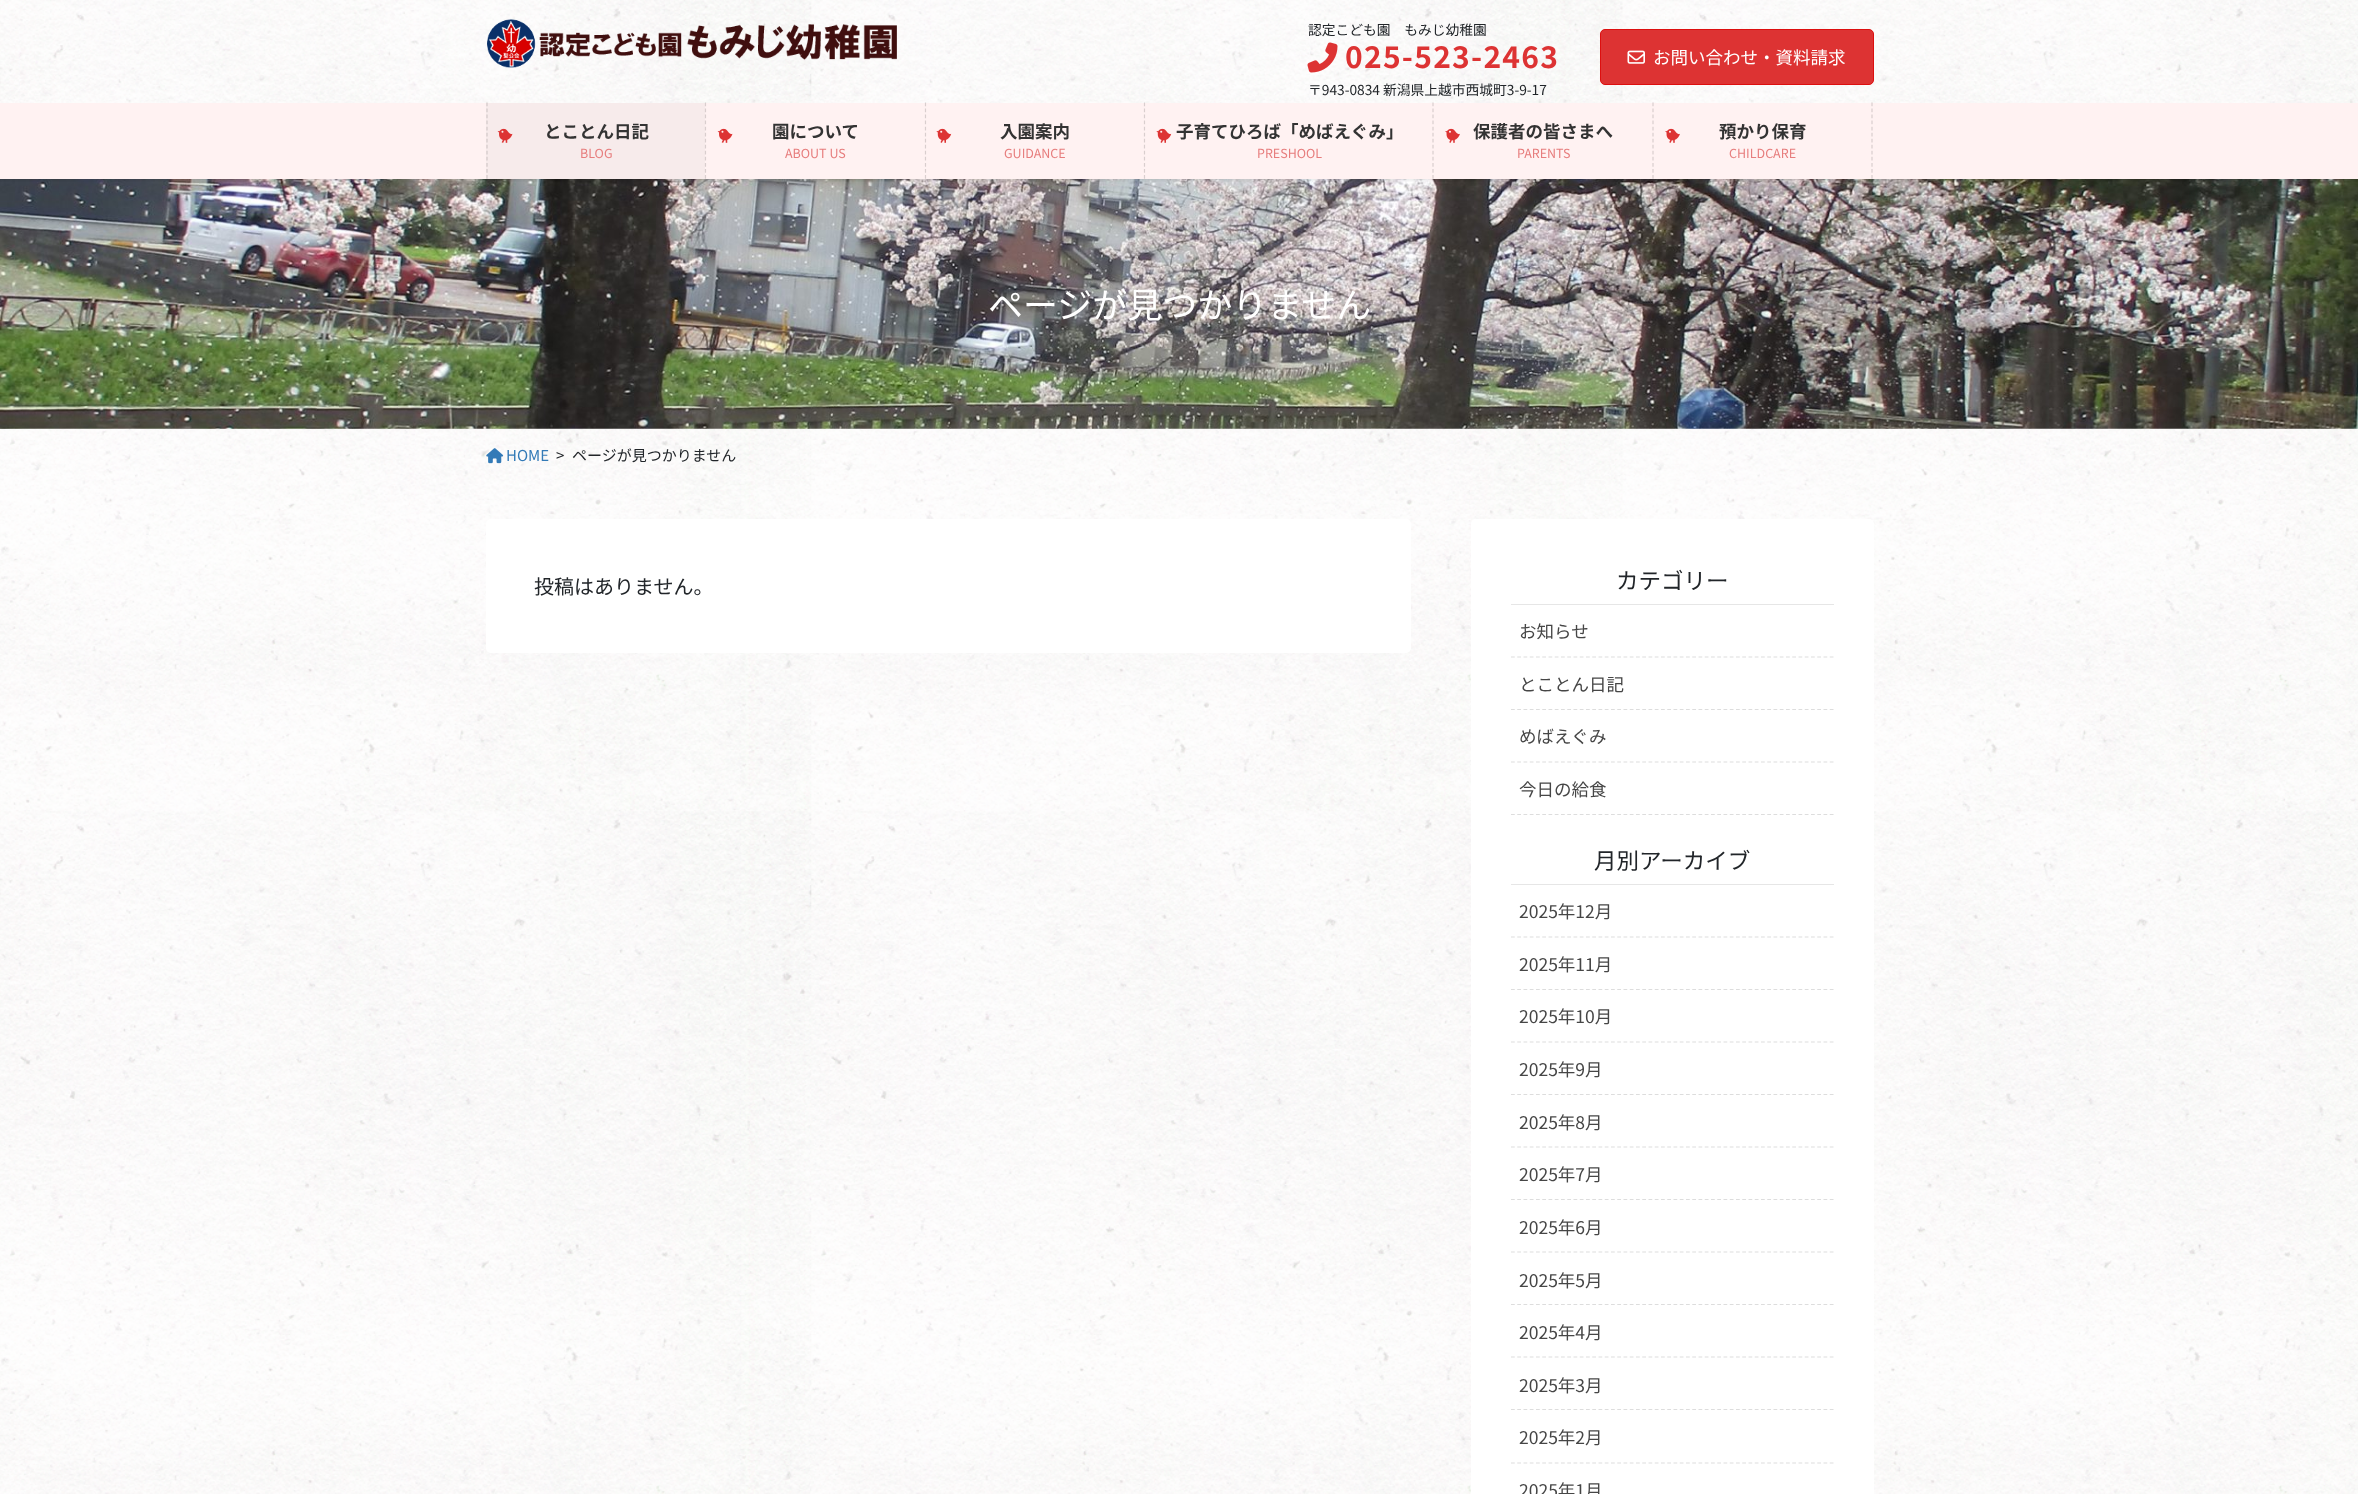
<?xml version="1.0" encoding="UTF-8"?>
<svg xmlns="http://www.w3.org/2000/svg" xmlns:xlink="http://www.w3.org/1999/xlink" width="2358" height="1494">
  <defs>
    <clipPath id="clip1"><rect x="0" y="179" width="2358" height="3" /></clipPath>
  </defs>
  <rect width="100%" height="100%" fill="#ffffff" />
  <image x="0" y="0" width="2358" height="1494" xlink:href="image1.png" />
  <image x="0" y="179" width="2358" height="250" xlink:href="image9.png" />
  <g clip-path="url(#clip1)">
    <rect y="1" width="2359" height="179" fill="#000000" fill-opacity="0.1" filter="blur(2px)" />
  </g>
  <image x="487" y="19" width="410" height="49" xlink:href="image2.png" />
  <image x="1307" y="42" width="31" height="31" xlink:href="image3.png" />
  <rect x="1600.5" y="29.5" width="273" height="55" rx="4.5" fill="#dd3333" stroke="#dd0f0f" />
  <image x="1627" y="50" width="18" height="14" xlink:href="image4.png" />
  <rect y="103" width="2358" height="76" fill="#fff2f2" />
  <rect x="486" y="103" width="219" height="76" fill="#f7ebeb" />
  <path d="M 487 102.5 v 76.5" fill="none" stroke="#d2c8c8" stroke-width="1.2" stroke-dasharray="3.75 2.29" />
  <image x="497" y="128" width="16" height="15" xlink:href="image5.png" />
  <path d="M 705.5 102.5 v 76.5" fill="none" stroke="#000000" stroke-opacity="0.15" stroke-width="1.2" stroke-dasharray="3.75 2.29" />
  <image x="717" y="128" width="16" height="15" xlink:href="image6.png" />
  <path d="M 925.5 102.5 v 76.5" fill="none" stroke="#000000" stroke-opacity="0.15" stroke-width="1.2" stroke-dasharray="3.75 2.29" />
  <image x="936" y="128" width="16" height="15" xlink:href="image7.png" />
  <path d="M 1144.5 102.5 v 76.5" fill="none" stroke="#000000" stroke-opacity="0.15" stroke-width="1.2" stroke-dasharray="3.75 2.29" />
  <image x="1156" y="128" width="16" height="15" xlink:href="image7.png" />
  <path d="M 1433 102.5 v 76.5" fill="none" stroke="#d9cece" stroke-width="1.2" stroke-dasharray="3.75 2.29" />
  <image x="1445" y="128" width="15" height="15" xlink:href="image8.png" />
  <path d="M 1872 102.5 v 76.5" fill="none" stroke="#d9cece" stroke-width="1.2" stroke-dasharray="3.75 2.29" />
  <path d="M 1653 102.5 v 76.5" fill="none" stroke="#d9cece" stroke-width="1.2" stroke-dasharray="3.75 2.29" />
  <image x="1665" y="128" width="15" height="15" xlink:href="image8.png" />
  <image x="486" y="448" width="18" height="16" xlink:href="image10.png" />
  <rect x="486" y="519" width="925" height="134" rx="5" fill="#ffffff" />
  <rect x="1471" y="519" width="403" height="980" rx="5" fill="#ffffff" />
  <rect x="1511" y="604" width="323" height="1" fill="#e6e6e6" />
  <path d="M 1511 657 h 323" fill="none" stroke="#dddddd" stroke-width="1.2" stroke-dasharray="3.75 2.5" />
  <path d="M 1511 709.5 h 323" fill="none" stroke="#dddddd" stroke-width="1.2" stroke-dasharray="3.75 2.5" />
  <path d="M 1511 762 h 323" fill="none" stroke="#dddddd" stroke-width="1.2" stroke-dasharray="3.75 2.5" />
  <path d="M 1511 814.5 h 323" fill="none" stroke="#dddddd" stroke-width="1.2" stroke-dasharray="3.75 2.5" />
  <rect x="1511" y="884" width="323" height="1" fill="#e6e6e6" />
  <path d="M 1511 937 h 323" fill="none" stroke="#dddddd" stroke-width="1.2" stroke-dasharray="3.75 2.5" />
  <path d="M 1511 989.5 h 323" fill="none" stroke="#dddddd" stroke-width="1.2" stroke-dasharray="3.75 2.5" />
  <path d="M 1511 1042 h 323" fill="none" stroke="#dddddd" stroke-width="1.2" stroke-dasharray="3.75 2.5" />
  <path d="M 1511 1094.5 h 323" fill="none" stroke="#dddddd" stroke-width="1.2" stroke-dasharray="3.75 2.5" />
  <path d="M 1511 1147 h 323" fill="none" stroke="#dddddd" stroke-width="1.2" stroke-dasharray="3.75 2.5" />
  <path d="M 1511 1199.5 h 323" fill="none" stroke="#dddddd" stroke-width="1.2" stroke-dasharray="3.75 2.5" />
  <path d="M 1511 1252 h 323" fill="none" stroke="#dddddd" stroke-width="1.2" stroke-dasharray="3.75 2.5" />
  <path d="M 1511 1304.5 h 323" fill="none" stroke="#dddddd" stroke-width="1.2" stroke-dasharray="3.75 2.5" />
  <path d="M 1511 1357 h 323" fill="none" stroke="#dddddd" stroke-width="1.2" stroke-dasharray="3.75 2.5" />
  <path d="M 1511 1409.5 h 323" fill="none" stroke="#dddddd" stroke-width="1.2" stroke-dasharray="3.75 2.5" />
  <path d="M 1511 1463 h 323" fill="none" stroke="#dddddd" stroke-width="1.2" stroke-dasharray="3.75 2.5" />
  <text x="1308" y="35" style="font-family: Noto Sans JP; font-size: 13.75px; fill: #212529">認定こども園　もみじ幼稚園</text>
  <text x="1345" y="68" style="font-family: Noto Sans JP; font-size: 30px; font-weight: bold; letter-spacing: 1.25px; fill: #dd3333">025-523-2463</text>
  <text x="1308" y="95" style="font-family: Noto Sans JP; font-size: 13.75px; fill: #212529">〒943-0834 新潟県上越市西城町3-9-17</text>
  <text x="1653" y="64" style="font-family: Noto Sans JP; font-size: 17.5px; fill: #ffffff">お問い合わせ・資料請求</text>
  <text x="544" y="138" style="font-family: Noto Sans JP; font-size: 17.5px; font-weight: bold; fill: #333333">とことん日記</text>
  <text x="580" y="158" style="font-family: Noto Sans JP; font-size: 12.5px; fill: #e77d7d">BLOG</text>
  <text x="772" y="138" style="font-family: Noto Sans JP; font-size: 17.5px; font-weight: bold; fill: #333333">園について</text>
  <text x="785" y="158" style="font-family: Noto Sans JP; font-size: 12.5px; fill: #e77d7d">ABOUT US</text>
  <text x="1000" y="138" style="font-family: Noto Sans JP; font-size: 17.5px; font-weight: bold; fill: #333333">入園案内</text>
  <text x="1004" y="158" style="font-family: Noto Sans JP; font-size: 12.5px; fill: #e77d7d">GUIDANCE</text>
  <text x="1176" y="138" style="font-family: Noto Sans JP; font-size: 17.5px; font-weight: bold; fill: #333333">子育てひろば「めばえぐみ」</text>
  <text x="1257" y="158" style="font-family: Noto Sans JP; font-size: 12.5px; fill: #e77d7d">PRESHOOL</text>
  <text x="1473" y="138" style="font-family: Noto Sans JP; font-size: 17.5px; font-weight: bold; fill: #333333">保護者の皆さまへ</text>
  <text x="1517" y="158" style="font-family: Noto Sans JP; font-size: 12.5px; fill: #e77d7d">PARENTS</text>
  <text x="1719" y="138" style="font-family: Noto Sans JP; font-size: 17.5px; font-weight: bold; fill: #333333">預かり保育</text>
  <text x="1729" y="158" style="font-family: Noto Sans JP; font-size: 12.5px; fill: #e77d7d">CHILDCARE</text>
  <text x="988" y="318" style="font-family: Noto Sans JP; font-size: 35px; fill: #ffffff">ページが見つかりません</text>
  <text x="506" y="461" style="font-family: Noto Sans JP; font-size: 15px; fill: #337ab7">HOME</text>
  <text x="556" y="461" style="font-family: Noto Sans JP; font-size: 15px; fill: #212529">&gt;</text>
  <text x="572" y="461" style="font-family: Noto Sans JP; font-size: 15px; fill: #212529">ページが見つかりません</text>
  <text x="534" y="594" style="font-family: Noto Sans JP; font-size: 20px; fill: #212529">投稿はありません。</text>
  <text x="1616" y="589" style="font-family: Noto Sans JP; font-size: 22.5px; fill: #212529">カテゴリー</text>
  <text x="1519" y="638" style="font-family: Noto Sans JP; font-size: 17.5px; fill: #464646">お知らせ</text>
  <text x="1519" y="691" style="font-family: Noto Sans JP; font-size: 17.5px; fill: #464646">とことん日記</text>
  <text x="1519" y="743" style="font-family: Noto Sans JP; font-size: 17.5px; fill: #464646">めばえぐみ</text>
  <text x="1519" y="796" style="font-family: Noto Sans JP; font-size: 17.5px; fill: #464646">今日の給食</text>
  <text x="1594" y="869" style="font-family: Noto Sans JP; font-size: 22.5px; fill: #212529">月別アーカイブ</text>
  <text x="1519" y="918" style="font-family: Noto Sans JP; font-size: 17.5px; fill: #464646">2025年12月</text>
  <text x="1519" y="971" style="font-family: Noto Sans JP; font-size: 17.5px; fill: #464646">2025年11月</text>
  <text x="1519" y="1023" style="font-family: Noto Sans JP; font-size: 17.5px; fill: #464646">2025年10月</text>
  <text x="1519" y="1076" style="font-family: Noto Sans JP; font-size: 17.5px; fill: #464646">2025年9月</text>
  <text x="1519" y="1129" style="font-family: Noto Sans JP; font-size: 17.5px; fill: #464646">2025年8月</text>
  <text x="1519" y="1181" style="font-family: Noto Sans JP; font-size: 17.5px; fill: #464646">2025年7月</text>
  <text x="1519" y="1234" style="font-family: Noto Sans JP; font-size: 17.5px; fill: #464646">2025年6月</text>
  <text x="1519" y="1287" style="font-family: Noto Sans JP; font-size: 17.5px; fill: #464646">2025年5月</text>
  <text x="1519" y="1339" style="font-family: Noto Sans JP; font-size: 17.5px; fill: #464646">2025年4月</text>
  <text x="1519" y="1392" style="font-family: Noto Sans JP; font-size: 17.5px; fill: #464646">2025年3月</text>
  <text x="1519" y="1444" style="font-family: Noto Sans JP; font-size: 17.5px; fill: #464646">2025年2月</text>
  <text x="1519" y="1497" style="font-family: Noto Sans JP; font-size: 17.5px; fill: #464646">2025年1月</text>
</svg>
